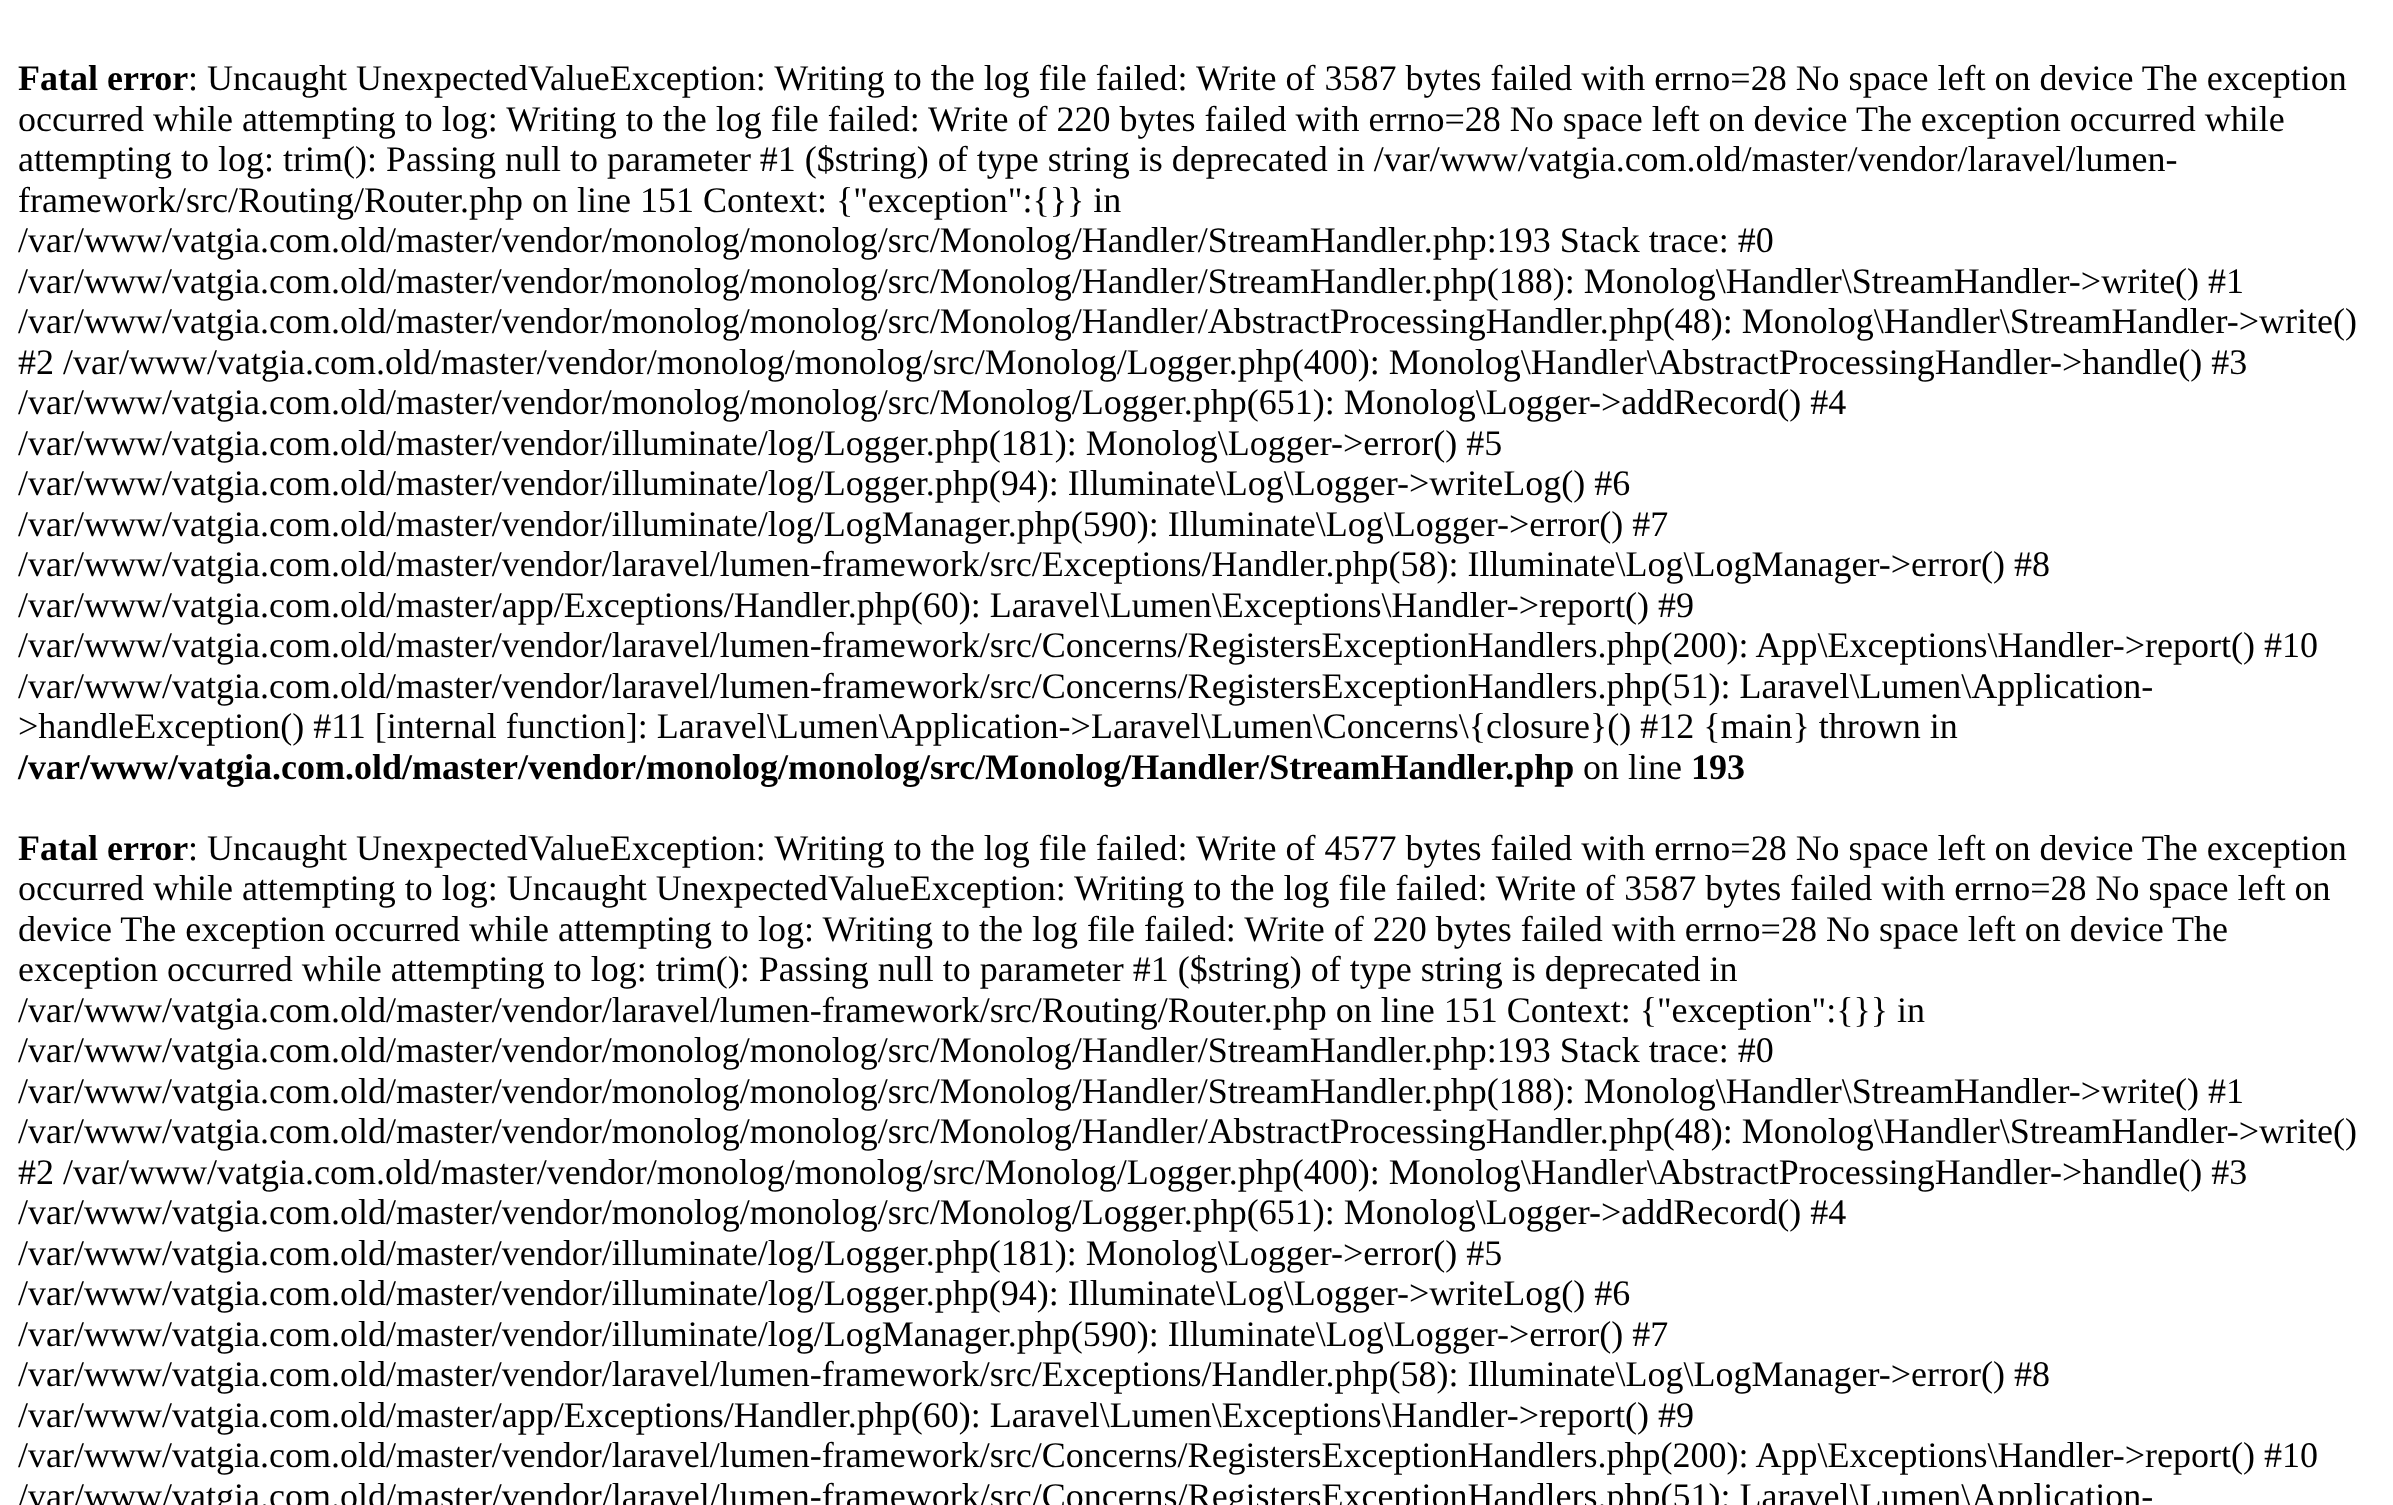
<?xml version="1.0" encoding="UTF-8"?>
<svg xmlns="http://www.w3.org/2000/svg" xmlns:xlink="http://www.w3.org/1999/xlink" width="2393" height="1505">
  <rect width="100%" height="100%" fill="#ffffff" />
  <text x="18" y="90" style="font-family: Liberation Serif; font-size: 36px; font-weight: bold; fill: #000000">Fatal error</text>
  <text x="188" y="90" style="font-family: Liberation Serif; font-size: 36px; fill: #000000">: Uncaught UnexpectedValueException: Writing to the log file failed: Write of 3587 bytes failed with errno=28 No space left on device The exception</text>
  <text x="18" y="131" style="font-family: Liberation Serif; font-size: 36px; fill: #000000">occurred while attempting to log: Writing to the log file failed: Write of 220 bytes failed with errno=28 No space left on device The exception occurred while</text>
  <text x="18" y="171" style="font-family: Liberation Serif; font-size: 36px; fill: #000000">attempting to log: trim(): Passing null to parameter #1 ($string) of type string is deprecated in /var/www/vatgia.com.old/master/vendor/laravel/lumen-</text>
  <text x="18" y="212" style="font-family: Liberation Serif; font-size: 36px; fill: #000000">framework/src/Routing/Router.php on line 151 Context: {"exception":{}} in</text>
  <text x="18" y="252" style="font-family: Liberation Serif; font-size: 36px; fill: #000000">/var/www/vatgia.com.old/master/vendor/monolog/monolog/src/Monolog/Handler/StreamHandler.php:193 Stack trace: #0</text>
  <text x="18" y="293" style="font-family: Liberation Serif; font-size: 36px; fill: #000000">/var/www/vatgia.com.old/master/vendor/monolog/monolog/src/Monolog/Handler/StreamHandler.php(188): Monolog\Handler\StreamHandler-&gt;write() #1</text>
  <text x="18" y="333" style="font-family: Liberation Serif; font-size: 36px; fill: #000000">/var/www/vatgia.com.old/master/vendor/monolog/monolog/src/Monolog/Handler/AbstractProcessingHandler.php(48): Monolog\Handler\StreamHandler-&gt;write()</text>
  <text x="18" y="374" style="font-family: Liberation Serif; font-size: 36px; fill: #000000">#2 /var/www/vatgia.com.old/master/vendor/monolog/monolog/src/Monolog/Logger.php(400): Monolog\Handler\AbstractProcessingHandler-&gt;handle() #3</text>
  <text x="18" y="414" style="font-family: Liberation Serif; font-size: 36px; fill: #000000">/var/www/vatgia.com.old/master/vendor/monolog/monolog/src/Monolog/Logger.php(651): Monolog\Logger-&gt;addRecord() #4</text>
  <text x="18" y="455" style="font-family: Liberation Serif; font-size: 36px; fill: #000000">/var/www/vatgia.com.old/master/vendor/illuminate/log/Logger.php(181): Monolog\Logger-&gt;error() #5</text>
  <text x="18" y="495" style="font-family: Liberation Serif; font-size: 36px; fill: #000000">/var/www/vatgia.com.old/master/vendor/illuminate/log/Logger.php(94): Illuminate\Log\Logger-&gt;writeLog() #6</text>
  <text x="18" y="536" style="font-family: Liberation Serif; font-size: 36px; fill: #000000">/var/www/vatgia.com.old/master/vendor/illuminate/log/LogManager.php(590): Illuminate\Log\Logger-&gt;error() #7</text>
  <text x="18" y="576" style="font-family: Liberation Serif; font-size: 36px; fill: #000000">/var/www/vatgia.com.old/master/vendor/laravel/lumen-framework/src/Exceptions/Handler.php(58): Illuminate\Log\LogManager-&gt;error() #8</text>
  <text x="18" y="617" style="font-family: Liberation Serif; font-size: 36px; fill: #000000">/var/www/vatgia.com.old/master/app/Exceptions/Handler.php(60): Laravel\Lumen\Exceptions\Handler-&gt;report() #9</text>
  <text x="18" y="657" style="font-family: Liberation Serif; font-size: 36px; fill: #000000">/var/www/vatgia.com.old/master/vendor/laravel/lumen-framework/src/Concerns/RegistersExceptionHandlers.php(200): App\Exceptions\Handler-&gt;report() #10</text>
  <text x="18" y="698" style="font-family: Liberation Serif; font-size: 36px; fill: #000000">/var/www/vatgia.com.old/master/vendor/laravel/lumen-framework/src/Concerns/RegistersExceptionHandlers.php(51): Laravel\Lumen\Application-</text>
  <text x="18" y="738" style="font-family: Liberation Serif; font-size: 36px; fill: #000000">&gt;handleException() #11 [internal function]: Laravel\Lumen\Application-&gt;Laravel\Lumen\Concerns\{closure}() #12 {main} thrown in</text>
  <text x="18" y="779" style="font-family: Liberation Serif; font-size: 36px; font-weight: bold; fill: #000000">/var/www/vatgia.com.old/master/vendor/monolog/monolog/src/Monolog/Handler/StreamHandler.php</text>
  <text x="1583" y="779" style="font-family: Liberation Serif; font-size: 36px; fill: #000000">on line</text>
  <text x="1691" y="779" style="font-family: Liberation Serif; font-size: 36px; font-weight: bold; fill: #000000">193</text>
  <text x="18" y="860" style="font-family: Liberation Serif; font-size: 36px; font-weight: bold; fill: #000000">Fatal error</text>
  <text x="188" y="860" style="font-family: Liberation Serif; font-size: 36px; fill: #000000">: Uncaught UnexpectedValueException: Writing to the log file failed: Write of 4577 bytes failed with errno=28 No space left on device The exception</text>
  <text x="18" y="900" style="font-family: Liberation Serif; font-size: 36px; fill: #000000">occurred while attempting to log: Uncaught UnexpectedValueException: Writing to the log file failed: Write of 3587 bytes failed with errno=28 No space left on</text>
  <text x="18" y="941" style="font-family: Liberation Serif; font-size: 36px; fill: #000000">device The exception occurred while attempting to log: Writing to the log file failed: Write of 220 bytes failed with errno=28 No space left on device The</text>
  <text x="18" y="981" style="font-family: Liberation Serif; font-size: 36px; fill: #000000">exception occurred while attempting to log: trim(): Passing null to parameter #1 ($string) of type string is deprecated in</text>
  <text x="18" y="1022" style="font-family: Liberation Serif; font-size: 36px; fill: #000000">/var/www/vatgia.com.old/master/vendor/laravel/lumen-framework/src/Routing/Router.php on line 151 Context: {"exception":{}} in</text>
  <text x="18" y="1062" style="font-family: Liberation Serif; font-size: 36px; fill: #000000">/var/www/vatgia.com.old/master/vendor/monolog/monolog/src/Monolog/Handler/StreamHandler.php:193 Stack trace: #0</text>
  <text x="18" y="1103" style="font-family: Liberation Serif; font-size: 36px; fill: #000000">/var/www/vatgia.com.old/master/vendor/monolog/monolog/src/Monolog/Handler/StreamHandler.php(188): Monolog\Handler\StreamHandler-&gt;write() #1</text>
  <text x="18" y="1143" style="font-family: Liberation Serif; font-size: 36px; fill: #000000">/var/www/vatgia.com.old/master/vendor/monolog/monolog/src/Monolog/Handler/AbstractProcessingHandler.php(48): Monolog\Handler\StreamHandler-&gt;write()</text>
  <text x="18" y="1184" style="font-family: Liberation Serif; font-size: 36px; fill: #000000">#2 /var/www/vatgia.com.old/master/vendor/monolog/monolog/src/Monolog/Logger.php(400): Monolog\Handler\AbstractProcessingHandler-&gt;handle() #3</text>
  <text x="18" y="1224" style="font-family: Liberation Serif; font-size: 36px; fill: #000000">/var/www/vatgia.com.old/master/vendor/monolog/monolog/src/Monolog/Logger.php(651): Monolog\Logger-&gt;addRecord() #4</text>
  <text x="18" y="1265" style="font-family: Liberation Serif; font-size: 36px; fill: #000000">/var/www/vatgia.com.old/master/vendor/illuminate/log/Logger.php(181): Monolog\Logger-&gt;error() #5</text>
  <text x="18" y="1305" style="font-family: Liberation Serif; font-size: 36px; fill: #000000">/var/www/vatgia.com.old/master/vendor/illuminate/log/Logger.php(94): Illuminate\Log\Logger-&gt;writeLog() #6</text>
  <text x="18" y="1346" style="font-family: Liberation Serif; font-size: 36px; fill: #000000">/var/www/vatgia.com.old/master/vendor/illuminate/log/LogManager.php(590): Illuminate\Log\Logger-&gt;error() #7</text>
  <text x="18" y="1386" style="font-family: Liberation Serif; font-size: 36px; fill: #000000">/var/www/vatgia.com.old/master/vendor/laravel/lumen-framework/src/Exceptions/Handler.php(58): Illuminate\Log\LogManager-&gt;error() #8</text>
  <text x="18" y="1427" style="font-family: Liberation Serif; font-size: 36px; fill: #000000">/var/www/vatgia.com.old/master/app/Exceptions/Handler.php(60): Laravel\Lumen\Exceptions\Handler-&gt;report() #9</text>
  <text x="18" y="1467" style="font-family: Liberation Serif; font-size: 36px; fill: #000000">/var/www/vatgia.com.old/master/vendor/laravel/lumen-framework/src/Concerns/RegistersExceptionHandlers.php(200): App\Exceptions\Handler-&gt;report() #10</text>
  <text x="18" y="1508" style="font-family: Liberation Serif; font-size: 36px; fill: #000000">/var/www/vatgia.com.old/master/vendor/laravel/lumen-framework/src/Concerns/RegistersExceptionHandlers.php(51): Laravel\Lumen\Application-</text>
</svg>
